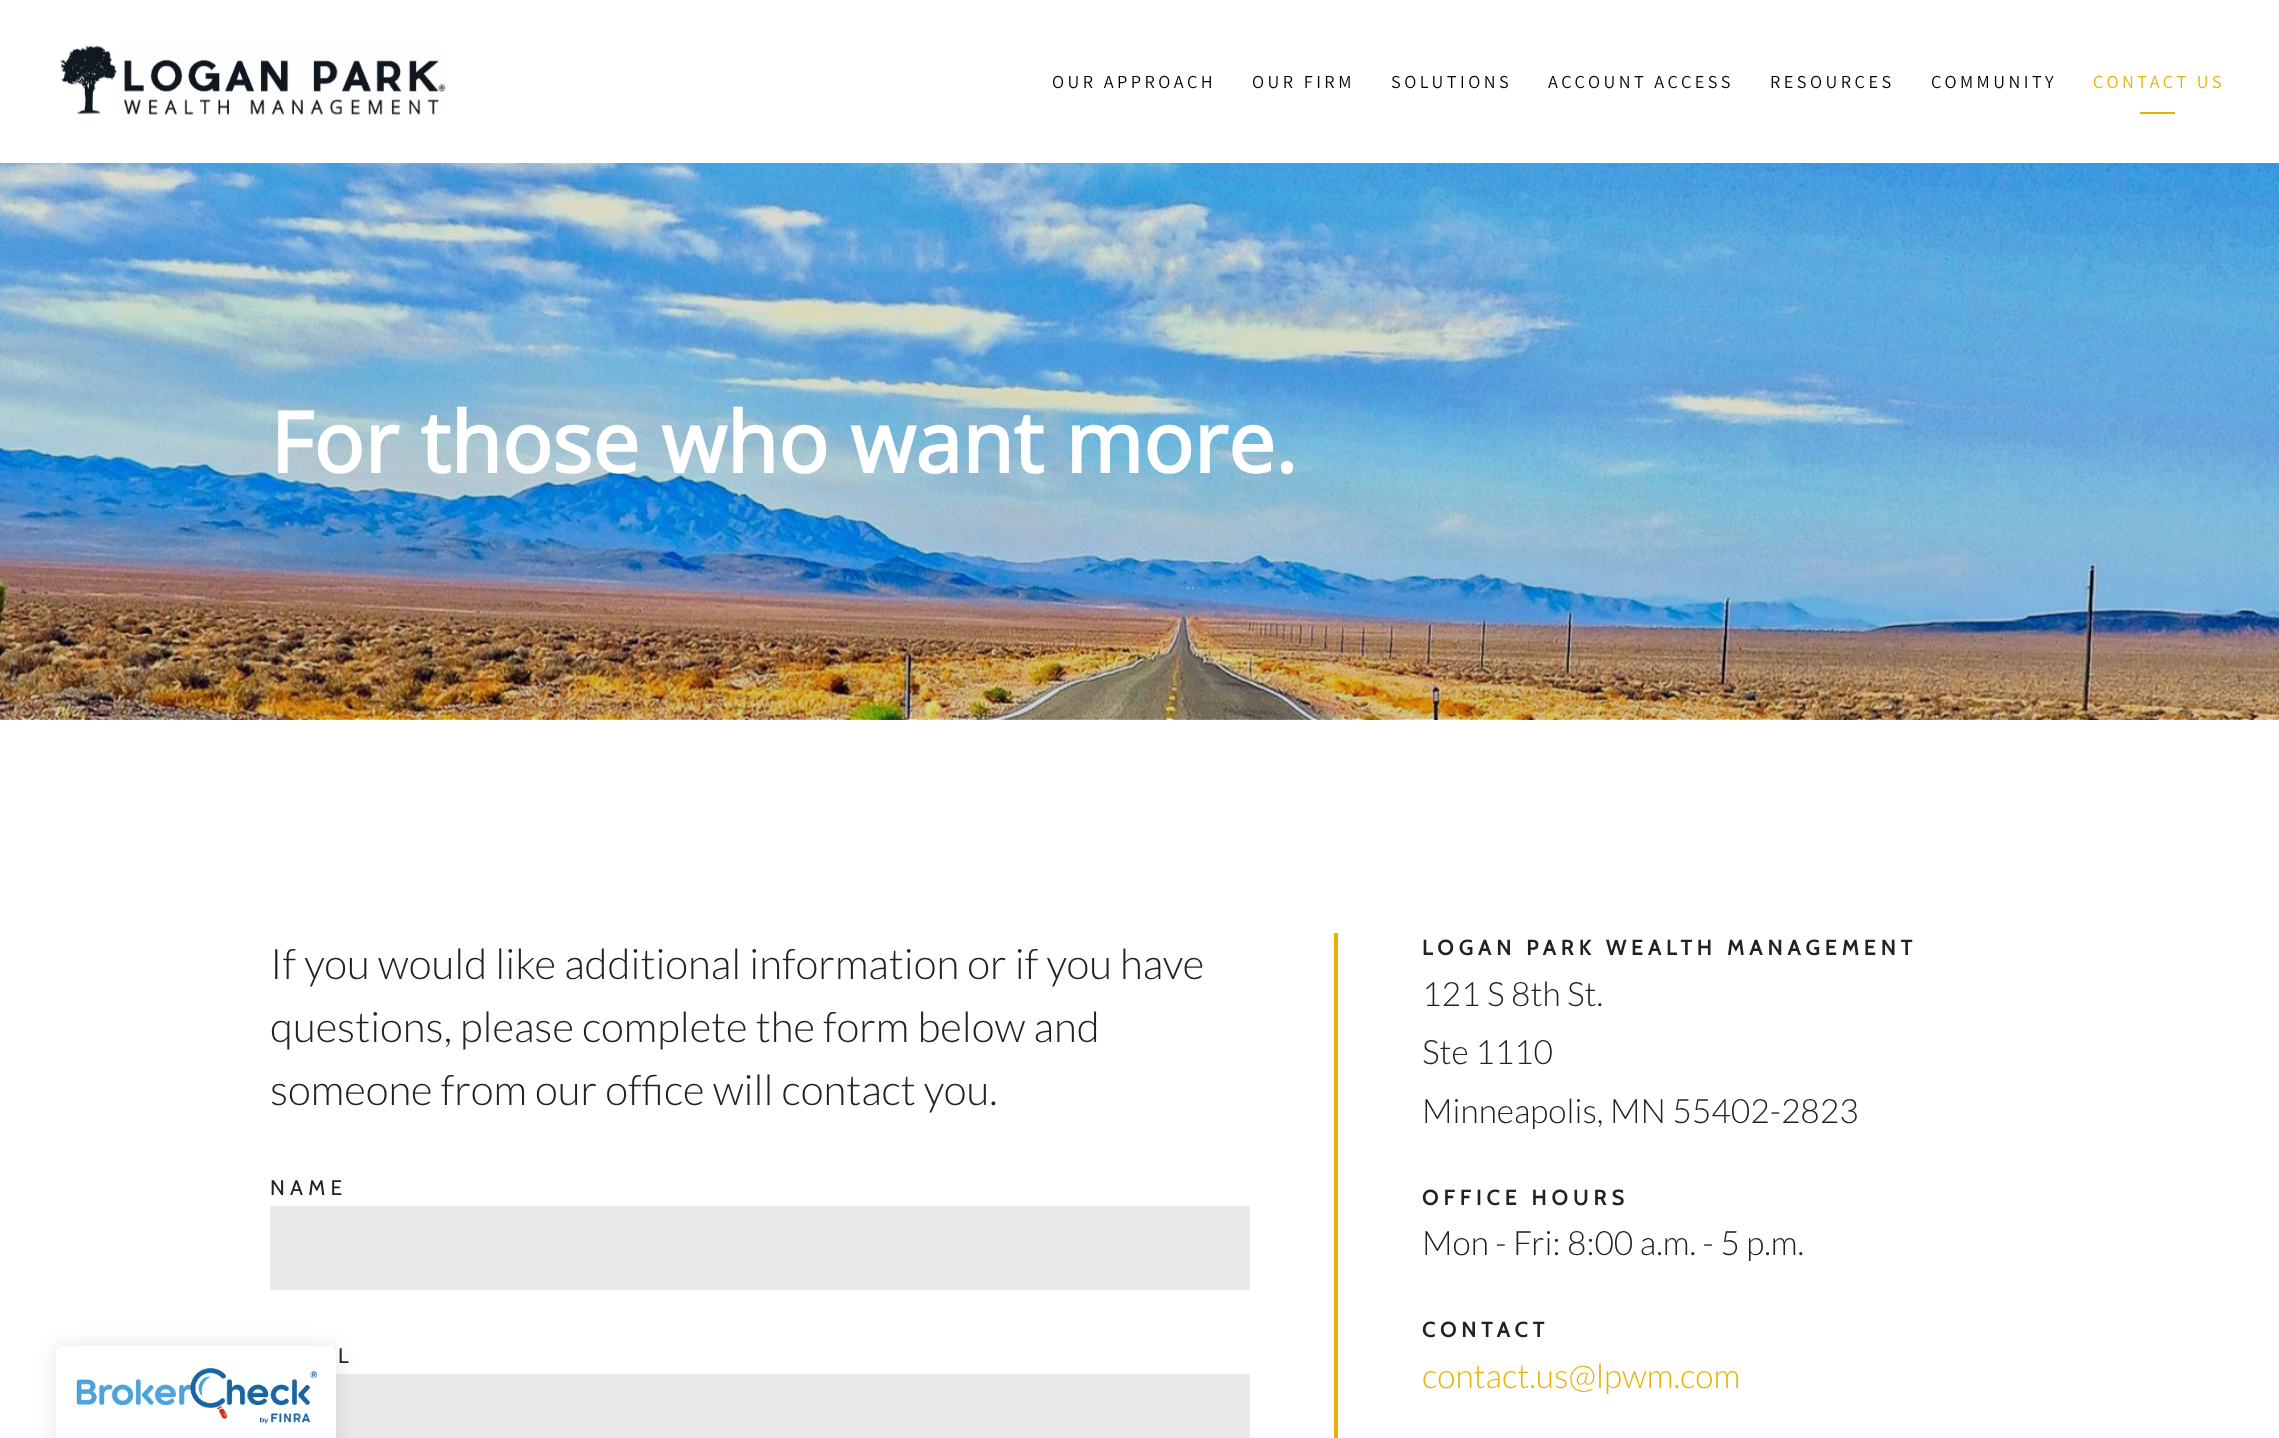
<?xml version="1.0" encoding="UTF-8"?>
<svg xmlns="http://www.w3.org/2000/svg" xmlns:xlink="http://www.w3.org/1999/xlink" width="2279" height="1438">
  <rect width="100%" height="100%" fill="#ffffff" />
  <rect x="336" y="1374" width="914" height="64" fill="#e9e9e9" />
  <rect x="56" y="1346" width="280" height="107" rx="7" fill="#000000" fill-opacity="0.1" filter="blur(10.5px)" />
  <path d="M 63 1346 h 266 c 4 0 7 3 7 7 v 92 h -280 v -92 c 0 -4 3 -7 7 -7 z" fill="#ffffff" />
  <image x="76" y="1368" width="242" height="56" xlink:href="image1.png" />
  <image x="60" y="45" width="386" height="70" xlink:href="image2.png" />
  <rect x="2140" y="112" width="35" height="2" fill="#e8b205" />
  <image x="0" y="163" width="2279" height="557" xlink:href="image3.png" />
  <rect x="270" y="1206" width="980" height="84" fill="#e9e9e9" />
  <rect x="1334" y="933" width="4" height="505" fill="#e8b205" />
  <text x="1052" y="88" style="font-family: Assistant; font-size: 18.25px; letter-spacing: 3.5px; fill: #000000">OUR APPROACH</text>
  <text x="1252" y="88" style="font-family: Assistant; font-size: 18.25px; letter-spacing: 3.5px; fill: #000000">OUR FIRM</text>
  <text x="1391" y="88" style="font-family: Assistant; font-size: 18.25px; letter-spacing: 3.5px; fill: #000000">SOLUTIONS</text>
  <text x="1548" y="88" style="font-family: Assistant; font-size: 18.25px; letter-spacing: 3.5px; fill: #000000">ACCOUNT ACCESS</text>
  <text x="1770" y="88" style="font-family: Assistant; font-size: 18.25px; letter-spacing: 3.5px; fill: #000000">RESOURCES</text>
  <text x="1931" y="88" style="font-family: Assistant; font-size: 18.25px; letter-spacing: 3.5px; fill: #000000">COMMUNITY</text>
  <text x="2093" y="88" style="font-family: Assistant; font-size: 18.25px; letter-spacing: 3.5px; fill: #e8b205">CONTACT US</text>
  <text x="270" y="473" style="font-family: Open Sans; font-size: 84px; font-weight: bold; fill: #ffffff">For those who want more.</text>
  <text x="270" y="979" style="font-family: Lato; font-size: 42px; font-weight: 300; fill: #222222">If you would like additional information or if you have</text>
  <text x="270" y="1042" style="font-family: Lato; font-size: 42px; font-weight: 300; fill: #222222">questions, please complete the form below and</text>
  <text x="270" y="1105" style="font-family: Lato; font-size: 42px; font-weight: 300; fill: #222222">someone from our office will contact you.</text>
  <text x="270" y="1195" style="font-family: Cabin; font-size: 21px; letter-spacing: 5.25px; fill: #222222">NAME</text>
  <text x="338" y="1363" style="font-family: Cabin; font-size: 21px; letter-spacing: 5.25px; fill: #222222">L</text>
  <text x="1422" y="955" style="font-family: Cabin; font-size: 21px; font-weight: bold; letter-spacing: 5.25px; fill: #222222">LOGAN PARK WEALTH MANAGEMENT</text>
  <text x="1422" y="1006" style="font-family: Lato; font-size: 33.6px; font-weight: 300; fill: #222222">121 S 8th St.</text>
  <text x="1422" y="1064" style="font-family: Lato; font-size: 33.6px; font-weight: 300; fill: #222222">Ste 1110</text>
  <text x="1422" y="1123" style="font-family: Lato; font-size: 33.6px; font-weight: 300; fill: #222222">Minneapolis, MN 55402-2823</text>
  <text x="1422" y="1205" style="font-family: Cabin; font-size: 21px; font-weight: bold; letter-spacing: 5.25px; fill: #222222">OFFICE HOURS</text>
  <text x="1422" y="1255" style="font-family: Lato; font-size: 33.6px; font-weight: 300; fill: #222222">Mon - Fri: 8:00 a.m. - 5 p.m.</text>
  <text x="1422" y="1337" style="font-family: Cabin; font-size: 21px; font-weight: bold; letter-spacing: 5.25px; fill: #222222">CONTACT</text>
  <text x="1422" y="1388" style="font-family: Lato; font-size: 33.6px; font-weight: 300; fill: #e8b205">contact.us@lpwm.com</text>
</svg>
